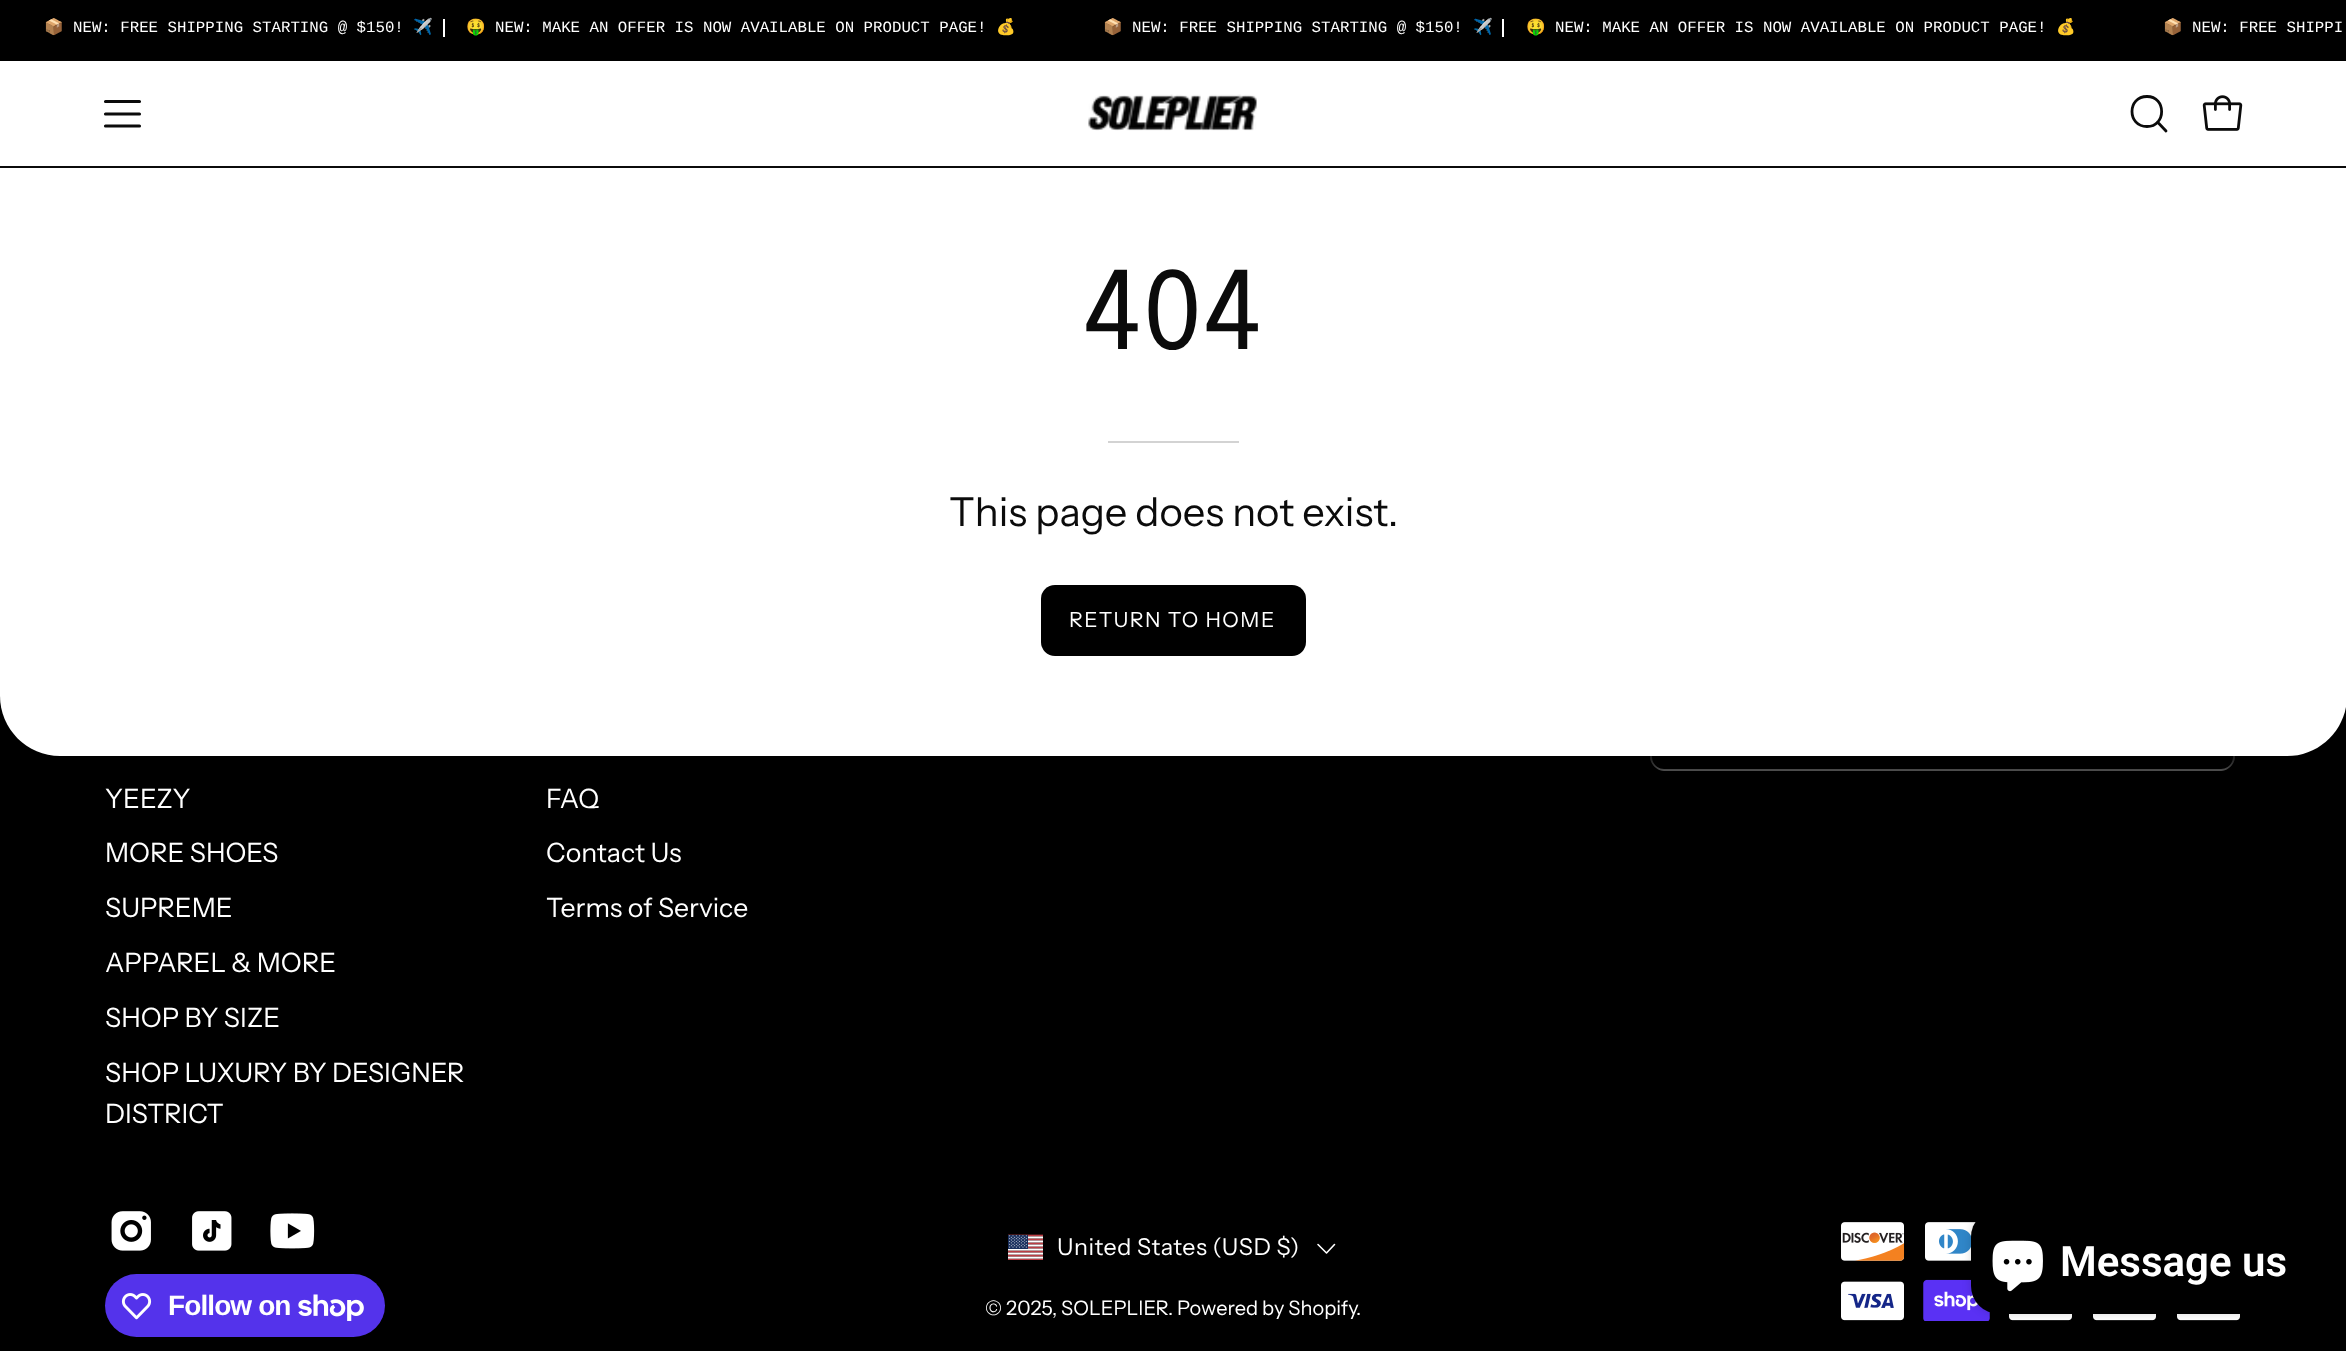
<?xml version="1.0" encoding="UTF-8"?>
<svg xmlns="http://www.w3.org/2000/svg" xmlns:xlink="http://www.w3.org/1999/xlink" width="2346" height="1351">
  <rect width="100%" height="100%" fill="#ffffff" />
  <rect width="2346" height="61" fill="#000000" />
  <rect x="443" y="19" width="2" height="18" fill="#ffffff" />
  <rect x="1502" y="19" width="2" height="18" fill="#ffffff" />
  <path d="M 105.5 114 h 34 m -34 -12.5 h 34 m -34 24.5 h 34" fill="none" stroke="#0b0b0b" stroke-width="3.1" stroke-linecap="round" stroke-linejoin="round" />
  <image x="1088" y="94" width="169" height="37" xlink:href="image1.png" />
  <path d="M 2147 126.5 c 19.5 0 19.5 -30 0 -30 c -20 0 -20 30 0 30 z m 10.5 -4.5 l 8.5 9" fill="none" stroke="#0b0b0b" stroke-width="2.8" stroke-linecap="round" stroke-linejoin="round" />
  <image x="2202" y="95" width="41" height="36" xlink:href="image2.png" />
  <rect y="696" width="2346" height="655" fill="#000000" />
  <path d="M 1664 676 h 476 v 95 h -476 c -7 0 -14 -7 -14 -14 v -67 c 0 -8 7 -14 14 -14 z m 0 2 h 476 v 91 h -476 c -7 0 -12 -6 -12 -12 v -67 c 0 -7 5 -12 12 -12 z" fill="#ffffff" fill-rule="evenodd" />
  <path d="M 2140 676 h 81 c 7 0 14 6 14 14 v 67 c 0 7 -7 14 -14 14 h -81 z m 0 2 h 81 c 7 0 12 5 12 12 v 67 c 0 6 -5 12 -12 12 h -81 z" fill="#ffffff" fill-rule="evenodd" />
  <rect x="18" y="228" width="2311" height="554" rx="42" fill="#000000" filter="blur(22px)" />
  <path d="M 0 166 h 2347 v 530 c 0 33 -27 60 -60 60 h -2227 c -33 0 -60 -27 -60 -60 z" fill="#ffffff" />
  <path d="M 0 166 v 2 h 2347 v -105 v 103 z" fill="#0b0b0b" />
  <rect x="1108" y="441" width="131" height="2" fill="#d3d3d3" />
  <rect x="1041" y="585" width="265" height="71" rx="14" fill="#000000" />
  <image x="111" y="1211" width="40" height="40" xlink:href="image3.png" />
  <image x="192" y="1211" width="40" height="40" xlink:href="image4.png" />
  <image x="270" y="1213" width="45" height="36" xlink:href="image5.png" />
  <rect x="105" y="1274" width="280" height="63" rx="31.5" fill="#5433eb" />
  <image x="121" y="1293" width="31" height="27" xlink:href="image6.png" />
  <image x="298" y="1294" width="66" height="27" xlink:href="image7.png" />
  <image x="1008" y="1234" width="35" height="26" xlink:href="image8.png" />
  <path d="M 1334.5 1244.5 l -8 8.5 l -8.5 -8.5" fill="none" stroke="#ffffff" stroke-width="1.6" stroke-linecap="round" stroke-linejoin="round" />
  <image x="1841" y="1222" width="64" height="39" xlink:href="image9.png" />
  <image x="1925" y="1222" width="51" height="39" xlink:href="image10.png" />
  <image x="1841" y="1281" width="63" height="40" xlink:href="image11.png" />
  <image x="1923" y="1279" width="67" height="42" xlink:href="image12.png" />
  <image x="2009" y="1314" width="63" height="7" xlink:href="image13.png" />
  <image x="2093" y="1314" width="63" height="7" xlink:href="image13.png" />
  <image x="2177" y="1314" width="63" height="7" xlink:href="image13.png" />
  <rect x="1971" y="1209" width="337" height="105" rx="28" fill="#000000" fill-opacity="0.15" filter="blur(4.5px)" />
  <rect x="1971" y="1209" width="337" height="105" rx="28" fill="#000000" />
  <image x="1992" y="1240" width="51" height="52" xlink:href="image14.png" />
  <text x="44" y="32" style="font-family: Noto Color Emoji; font-size: 15.75px; fill: #ffffff">📦</text>
  <text x="73" y="32" style="font-family: Liberation Mono; font-size: 15.75px; fill: #ffffff">NEW: FREE SHIPPING STARTING @ $150!</text>
  <text x="413" y="32" style="font-family: Noto Color Emoji; font-size: 15.75px; fill: #ffffff">✈️</text>
  <text x="466" y="32" style="font-family: Noto Color Emoji; font-size: 15.75px; fill: #ffffff">🤑</text>
  <text x="495" y="32" style="font-family: Liberation Mono; font-size: 15.75px; fill: #ffffff">NEW: MAKE AN OFFER IS NOW AVAILABLE ON PRODUCT PAGE!</text>
  <text x="996" y="32" style="font-family: Noto Color Emoji; font-size: 15.75px; fill: #ffffff">💰</text>
  <text x="1103" y="32" style="font-family: Noto Color Emoji; font-size: 15.75px; fill: #ffffff">📦</text>
  <text x="1132" y="32" style="font-family: Liberation Mono; font-size: 15.75px; fill: #ffffff">NEW: FREE SHIPPING STARTING @ $150!</text>
  <text x="1473" y="32" style="font-family: Noto Color Emoji; font-size: 15.75px; fill: #ffffff">✈️</text>
  <text x="1526" y="32" style="font-family: Noto Color Emoji; font-size: 15.75px; fill: #ffffff">🤑</text>
  <text x="1555" y="32" style="font-family: Liberation Mono; font-size: 15.75px; fill: #ffffff">NEW: MAKE AN OFFER IS NOW AVAILABLE ON PRODUCT PAGE!</text>
  <text x="2056" y="32" style="font-family: Noto Color Emoji; font-size: 15.75px; fill: #ffffff">💰</text>
  <text x="2163" y="32" style="font-family: Noto Color Emoji; font-size: 15.75px; fill: #ffffff">📦</text>
  <text x="2192" y="32" style="font-family: Liberation Mono; font-size: 15.75px; fill: #ffffff">NEW: FREE SHIPPI</text>
  <text x="1083" y="349" style="font-family: Epilogue; font-size: 107px; fill: #0b0b0b">404</text>
  <text x="949" y="526" style="font-family: Instrument Sans; font-size: 39.9px; fill: #0b0b0b">This page does not exist.</text>
  <text x="1069" y="627" style="font-family: Instrument Sans; font-size: 21px; letter-spacing: 1.5px; fill: #ffffff">RETURN TO HOME</text>
  <text x="105" y="808" style="font-family: Instrument Sans; font-size: 26.6px; fill: #ffffff">YEEZY</text>
  <text x="105" y="862" style="font-family: Instrument Sans; font-size: 26.6px; fill: #ffffff">MORE SHOES</text>
  <text x="105" y="917" style="font-family: Instrument Sans; font-size: 26.6px; fill: #ffffff">SUPREME</text>
  <text x="105" y="972" style="font-family: Instrument Sans; font-size: 26.6px; fill: #ffffff">APPAREL &amp; MORE</text>
  <text x="105" y="1027" style="font-family: Instrument Sans; font-size: 26.6px; fill: #ffffff">SHOP BY SIZE</text>
  <text x="105" y="1082" style="font-family: Instrument Sans; font-size: 26.6px; fill: #ffffff">SHOP LUXURY BY DESIGNER</text>
  <text x="105" y="1123" style="font-family: Instrument Sans; font-size: 26.6px; fill: #ffffff">DISTRICT</text>
  <text x="546" y="808" style="font-family: Instrument Sans; font-size: 26.6px; fill: #ffffff">FAQ</text>
  <text x="546" y="862" style="font-family: Instrument Sans; font-size: 26.6px; fill: #ffffff">Contact Us</text>
  <text x="546" y="917" style="font-family: Instrument Sans; font-size: 26.6px; fill: #ffffff">Terms of Service</text>
  <text x="168" y="1315" style="font-family: Liberation Sans; font-size: 28px; font-weight: bold; letter-spacing: -0.9px; fill: #ffffff">Follow on</text>
  <text x="1057" y="1255" style="font-family: Instrument Sans; font-size: 23.25px; letter-spacing: 0.5px; fill: #ffffff">United States (USD $)</text>
  <text x="985" y="1315" style="font-family: Instrument Sans; font-size: 20px; fill: #ffffff">© 2025, SOLEPLIER</text>
  <text x="1168" y="1315" style="font-family: Instrument Sans; font-size: 20px; fill: #ffffff">. Powered by Shopify</text>
  <text x="1356" y="1315" style="font-family: Instrument Sans; font-size: 20px; fill: #ffffff">.</text>
  <text x="2060" y="1276" style="font-family: Roboto; font-size: 42px; font-weight: 600; fill: #ffffff">Message us</text>
</svg>
